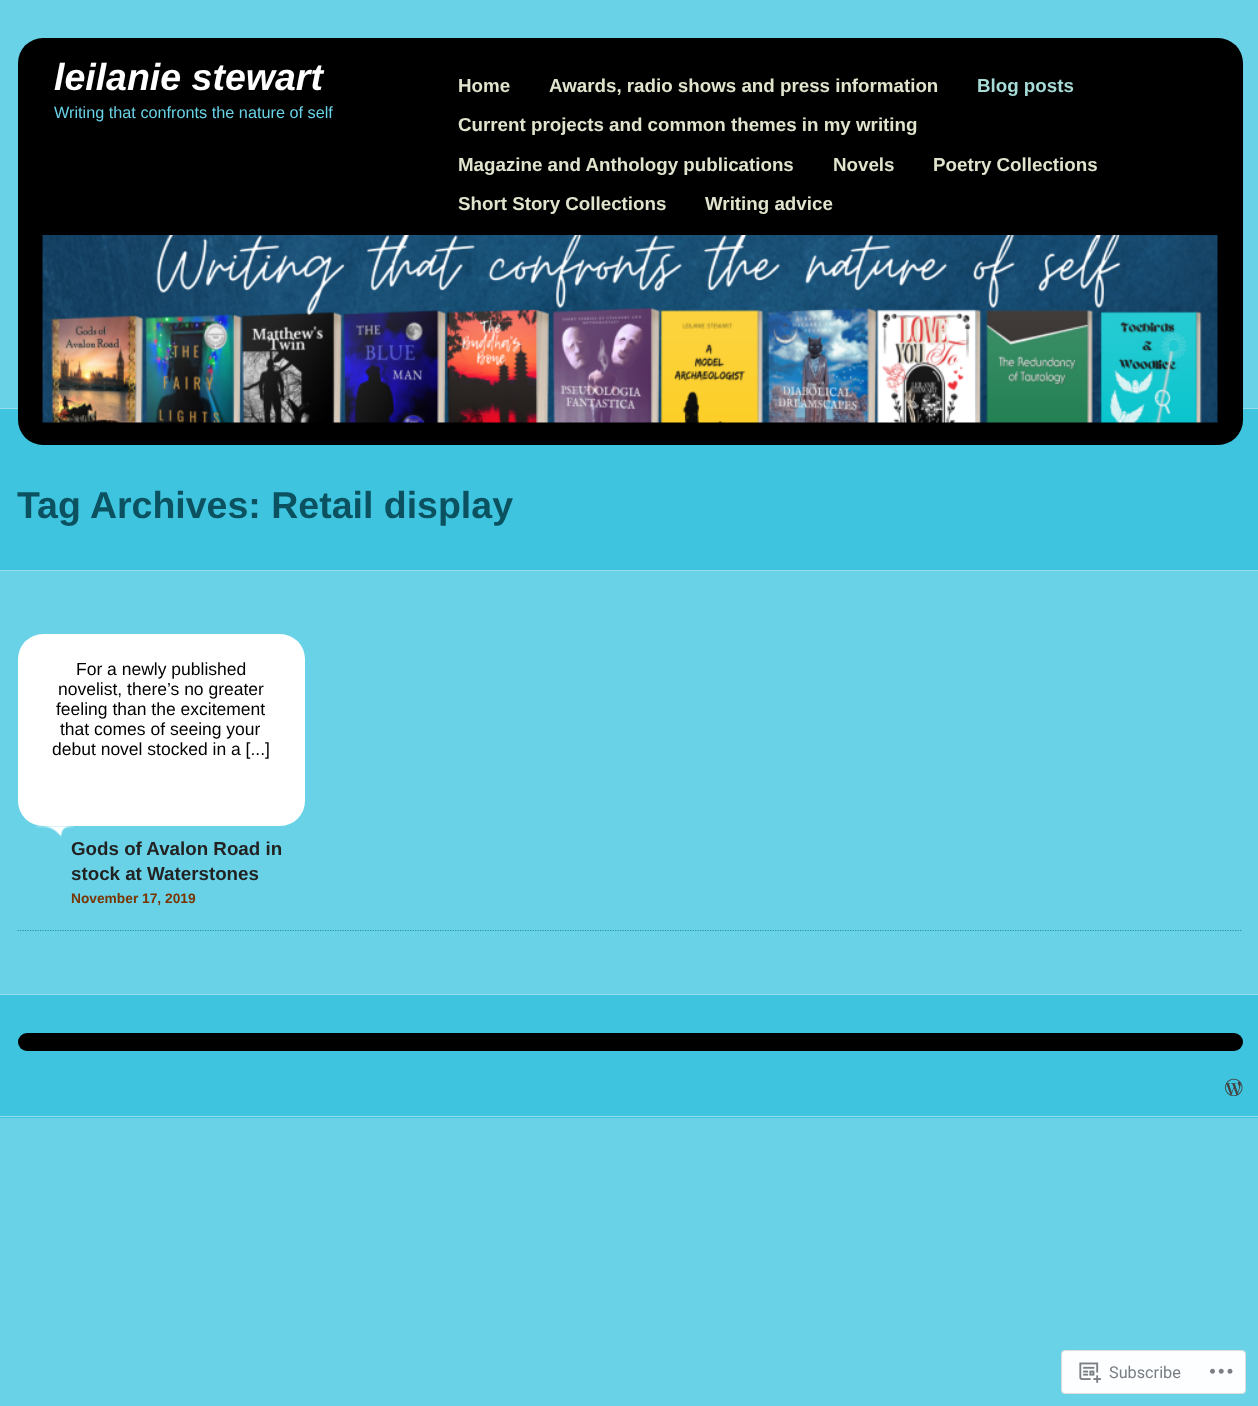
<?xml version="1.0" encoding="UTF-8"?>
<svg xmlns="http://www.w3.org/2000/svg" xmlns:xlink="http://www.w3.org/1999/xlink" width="1258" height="1406">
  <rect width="100%" height="100%" fill="#69d2e7" />
  <rect y="409" width="1258" height="161" fill="#3ec4df" />
  <rect y="408" width="1258" height="1" fill="#95dfed" />
  <rect x="18" y="38" width="1225" height="407" rx="25" fill="#000000" />
  <image x="42" y="235" width="1176" height="188" xlink:href="image1.png" />
  <rect y="570" width="1258" height="1" fill="#95dfed" />
  <path d="M 17.5 930.5 h 1225" fill="none" stroke="#1e95ad" stroke-width="1.2" stroke-dasharray="1.25 1.25" />
  <rect x="18" y="634" width="287" height="192" rx="25" fill="#ffffff" />
  <image x="36" y="826" width="38" height="11" xlink:href="image2.png" />
  <rect y="995" width="1258" height="123" fill="#3ec4df" />
  <rect y="994" width="1258" height="1" fill="#95dfed" />
  <rect y="1116" width="1258" height="1" fill="#95dfed" />
  <rect x="18" y="1033" width="1225" height="18" rx="9" fill="#000000" />
  <image x="1225" y="1078" width="18" height="18" xlink:href="image3.png" />
  <rect x="1061.5" y="1350.5" width="184" height="43" rx="3.5" fill="#fcfeff" stroke="#dadcde" />
  <image x="1079" y="1362" width="22" height="21" xlink:href="image4.png" />
  <image x="1210" y="1368" width="23" height="6" xlink:href="image5.png" />
  <text x="54" y="90" style="font-family: Liberation Sans; font-size: 37.5px; font-weight: bold; font-style: italic; fill: #ffffff">leilanie stewart</text>
  <text x="54" y="118" style="font-family: Liberation Sans; font-size: 16.25px; fill: #69d2e7">Writing that confronts the nature of self</text>
  <text x="458" y="92" style="font-family: Liberation Sans; font-size: 18.75px; font-weight: bold; fill: #e0e4cc">Home</text>
  <text x="549" y="92" style="font-family: Liberation Sans; font-size: 18.75px; font-weight: bold; fill: #e0e4cc">Awards, radio shows and press information</text>
  <text x="977" y="92" style="font-family: Liberation Sans; font-size: 18.75px; font-weight: bold; fill: #a7dbd8">Blog posts</text>
  <text x="458" y="131" style="font-family: Liberation Sans; font-size: 18.75px; font-weight: bold; fill: #e0e4cc">Current projects and common themes in my writing</text>
  <text x="458" y="171" style="font-family: Liberation Sans; font-size: 18.75px; font-weight: bold; fill: #e0e4cc">Magazine and Anthology publications</text>
  <text x="833" y="171" style="font-family: Liberation Sans; font-size: 18.75px; font-weight: bold; fill: #e0e4cc">Novels</text>
  <text x="933" y="171" style="font-family: Liberation Sans; font-size: 18.75px; font-weight: bold; fill: #e0e4cc">Poetry Collections</text>
  <text x="458" y="210" style="font-family: Liberation Sans; font-size: 18.75px; font-weight: bold; fill: #e0e4cc">Short Story Collections</text>
  <text x="705" y="210" style="font-family: Liberation Sans; font-size: 18.75px; font-weight: bold; fill: #e0e4cc">Writing advice</text>
  <text x="17" y="518" style="font-family: Liberation Sans; font-size: 37.5px; font-weight: bold; fill: #0b515f">Tag Archives: Retail display</text>
  <text x="76" y="675" style="font-family: Liberation Sans; font-size: 17.5px; fill: #000000">For a newly published</text>
  <text x="58" y="695" style="font-family: Liberation Sans; font-size: 17.5px; fill: #000000">novelist, there’s no greater</text>
  <text x="56" y="715" style="font-family: Liberation Sans; font-size: 17.5px; fill: #000000">feeling than the excitement</text>
  <text x="60" y="735" style="font-family: Liberation Sans; font-size: 17.5px; fill: #000000">that comes of seeing your</text>
  <text x="52" y="755" style="font-family: Liberation Sans; font-size: 17.5px; fill: #000000">debut novel stocked in a [...]</text>
  <text x="71" y="855" style="font-family: Liberation Sans; font-size: 18.75px; font-weight: bold; fill: #222222">Gods of Avalon Road in</text>
  <text x="71" y="880" style="font-family: Liberation Sans; font-size: 18.75px; font-weight: bold; fill: #222222">stock at Waterstones</text>
  <text x="71" y="903" style="font-family: Liberation Sans; font-size: 13.75px; font-weight: bold; fill: #793501">November 17, 2019</text>
  <text x="1109" y="1378" style="font-family: Roboto; font-size: 16.25px; fill: #787e84">Subscribe</text>
</svg>
